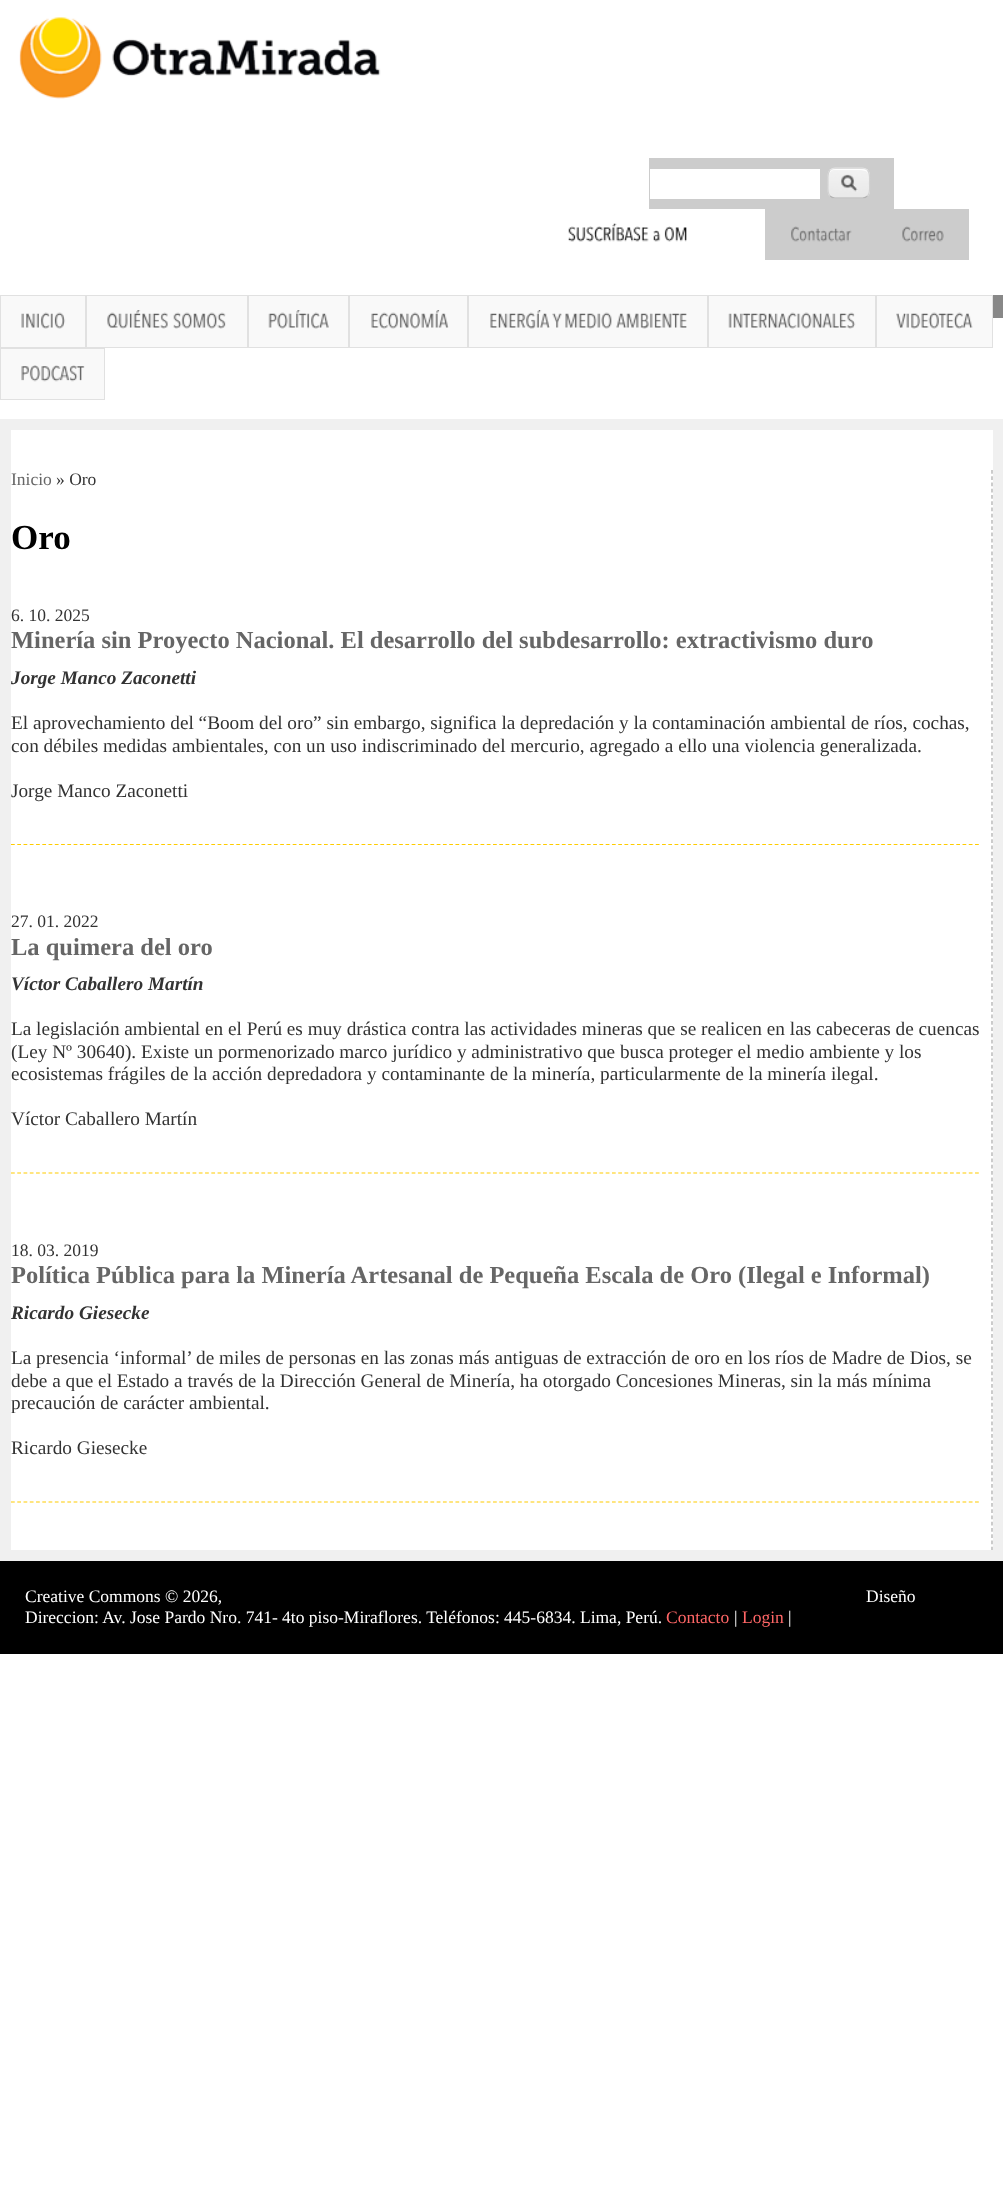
<?xml version="1.0" encoding="UTF-8"?>
<svg xmlns="http://www.w3.org/2000/svg" xmlns:xlink="http://www.w3.org/1999/xlink" width="1003" height="2211">
  <rect width="100%" height="100%" fill="#ffffff" />
  <image x="19" y="17" width="362" height="82" xlink:href="image1.png" />
  <rect x="649" y="158" width="245" height="51" fill="#cccccc" />
  <rect x="650" y="169" width="170" height="30" fill="#ffffff" />
  <image x="827" y="168" width="43" height="31" xlink:href="image2.png" />
  <path d="M 835 170 h 23 c 9 0 11 2 11 8 c 0 -8 -3 -9 -11 -9 h -18 c -5 0 -11 0 -11 6 c 1 -3 2 -5 6 -5 z m 34 20 l -1 5 z" fill="#ffffff" fill-rule="evenodd" />
  <path d="M 830 170 c 1.5 -1 3 -2 5 -2 h 27.5 c 2 0 3.5 1 5 2" fill="none" stroke="#e4e4e4" stroke-width="1.2" />
  <path d="M 867.5 170 c 3 3.5 2 9 2 13 c 0 4 1 10 -2 13" fill="none" stroke="#d2d2d2" stroke-width="1.2" />
  <path d="M 867.5 196 c -1.5 1.5 -3 2 -5 2 h -27.5 c -2 0 -3.5 -0.5 -5 -2" fill="none" stroke="#b4b4b4" stroke-width="1.2" />
  <path d="M 830 196 c -3 -3 -2 -9 -2 -13 c 0 -4 -1 -9.5 2 -13" fill="none" stroke="#d2d2d2" stroke-width="1.2" />
  <image x="568" y="223" width="81" height="19" xlink:href="image3.png" />
  <image x="653" y="230" width="8" height="12" xlink:href="image4.png" />
  <image x="664" y="226" width="23" height="16" xlink:href="image5.png" />
  <rect x="765" y="209" width="204" height="51" fill="#cccccc" />
  <image x="791" y="226" width="61" height="16" xlink:href="image6.png" />
  <image x="902" y="226" width="42" height="16" xlink:href="image7.png" />
  <rect x="993" y="295" width="10" height="23" fill="#888888" />
  <rect x="0.5" y="295.5" width="85" height="52" fill="#f9f9f9" stroke="#e1e1e1" />
  <image x="21" y="312" width="45" height="17" xlink:href="image8.png" />
  <rect x="86.5" y="295.5" width="161" height="52" fill="#f9f9f9" stroke="#e1e1e1" />
  <image x="107" y="310" width="61" height="19" xlink:href="image9.png" />
  <image x="173" y="312" width="53" height="17" xlink:href="image10.png" />
  <rect x="248.5" y="295.5" width="100" height="52" fill="#f9f9f9" stroke="#e1e1e1" />
  <image x="268" y="310" width="61" height="19" xlink:href="image11.png" />
  <rect x="349.5" y="295.5" width="118" height="52" fill="#f9f9f9" stroke="#e1e1e1" />
  <image x="371" y="310" width="78" height="19" xlink:href="image12.png" />
  <rect x="468.5" y="295.5" width="239" height="52" fill="#f9f9f9" stroke="#e1e1e1" />
  <image x="490" y="310" width="60" height="19" xlink:href="image13.png" />
  <image x="552" y="313" width="10" height="15" xlink:href="image14.png" />
  <image x="565" y="312" width="47" height="17" xlink:href="image15.png" />
  <image x="616" y="313" width="71" height="16" xlink:href="image16.png" />
  <rect x="708.5" y="295.5" width="167" height="52" fill="#f9f9f9" stroke="#e1e1e1" />
  <image x="728" y="312" width="128" height="17" xlink:href="image17.png" />
  <rect x="876.5" y="295.5" width="116" height="52" fill="#f9f9f9" stroke="#e1e1e1" />
  <image x="896" y="312" width="77" height="17" xlink:href="image18.png" />
  <rect x="0.5" y="348.5" width="104" height="51" fill="#f9f9f9" stroke="#e1e1e1" />
  <image x="21" y="365" width="64" height="17" xlink:href="image19.png" />
  <rect y="419" width="1003" height="1142" fill="#f0f0f0" />
  <rect x="11" y="430" width="982" height="1120" fill="#ffffff" />
  <path d="M 992 470 v 1080" fill="none" stroke="#aaaaaa" stroke-width="1.2" stroke-dasharray="3.75 2.51" />
  <path d="M 11 844.5 h 968" fill="none" stroke="#ffcc00" stroke-width="1.2" stroke-dasharray="3.75 2.51" />
  <path d="M 11 1173 h 968" fill="none" stroke="#ffcc00" stroke-width="1.2" stroke-dasharray="3.75 2.51" />
  <path d="M 11 1502 h 968" fill="none" stroke="#ffcc00" stroke-width="1.2" stroke-dasharray="3.75 2.51" />
  <rect y="1561" width="1003" height="93" fill="#000000" />
  <text x="11" y="485" style="font-family: Liberation Serif; font-size: 17.5px; fill: #666666">Inicio</text>
  <text x="56" y="485" style="font-family: Liberation Serif; font-size: 17.5px; fill: #333333">» Oro</text>
  <text x="11" y="549" style="font-family: Liberation Serif; font-size: 35px; font-weight: bold; fill: #000000">Oro</text>
  <text x="11" y="621" style="font-family: Liberation Serif; font-size: 17.5px; fill: #333333">6. 10. 2025</text>
  <text x="11" y="648" style="font-family: Liberation Serif; font-size: 24.5px; font-weight: bold; fill: #666666">Minería sin Proyecto Nacional. El desarrollo del subdesarrollo: extractivismo duro</text>
  <text x="11" y="684" style="font-family: Liberation Serif; font-size: 19.25px; font-weight: bold; font-style: italic; fill: #333333">Jorge Manco Zaconetti</text>
  <text x="11" y="729" style="font-family: Liberation Serif; font-size: 19.25px; fill: #333333">El aprovechamiento del “Boom del oro” sin embargo, significa la depredación y la contaminación ambiental de ríos, cochas,</text>
  <text x="11" y="752" style="font-family: Liberation Serif; font-size: 19.25px; fill: #333333">con débiles medidas ambientales, con un uso indiscriminado del mercurio, agregado a ello una violencia generalizada.</text>
  <text x="11" y="797" style="font-family: Liberation Serif; font-size: 19.25px; fill: #333333">Jorge Manco Zaconetti</text>
  <text x="11" y="927" style="font-family: Liberation Serif; font-size: 17.5px; fill: #333333">27. 01. 2022</text>
  <text x="11" y="955" style="font-family: Liberation Serif; font-size: 24.5px; font-weight: bold; fill: #666666">La quimera del oro</text>
  <text x="11" y="990" style="font-family: Liberation Serif; font-size: 19.25px; font-weight: bold; font-style: italic; fill: #333333">Víctor Caballero Martín</text>
  <text x="11" y="1035" style="font-family: Liberation Serif; font-size: 19.25px; fill: #333333">La legislación ambiental en el Perú es muy drástica contra las actividades mineras que se realicen en las cabeceras de cuencas</text>
  <text x="11" y="1058" style="font-family: Liberation Serif; font-size: 19.25px; fill: #333333">(Ley Nº 30640). Existe un pormenorizado marco jurídico y administrativo que busca proteger el medio ambiente y los</text>
  <text x="11" y="1080" style="font-family: Liberation Serif; font-size: 19.25px; fill: #333333">ecosistemas frágiles de la acción depredadora y contaminante de la minería, particularmente de la minería ilegal.</text>
  <text x="11" y="1125" style="font-family: Liberation Serif; font-size: 19.25px; fill: #333333">Víctor Caballero Martín</text>
  <text x="11" y="1256" style="font-family: Liberation Serif; font-size: 17.5px; fill: #333333">18. 03. 2019</text>
  <text x="11" y="1283" style="font-family: Liberation Serif; font-size: 24.5px; font-weight: bold; fill: #666666">Política Pública para la Minería Artesanal de Pequeña Escala de Oro (Ilegal e Informal)</text>
  <text x="11" y="1319" style="font-family: Liberation Serif; font-size: 19.25px; font-weight: bold; font-style: italic; fill: #333333">Ricardo Giesecke</text>
  <text x="11" y="1364" style="font-family: Liberation Serif; font-size: 19.25px; fill: #333333">La presencia ‘informal’ de miles de personas en las zonas más antiguas de extracción de oro en los ríos de Madre de Dios, se</text>
  <text x="11" y="1387" style="font-family: Liberation Serif; font-size: 19.25px; fill: #333333">debe a que el Estado a través de la Dirección General de Minería, ha otorgado Concesiones Mineras, sin la más mínima</text>
  <text x="11" y="1409" style="font-family: Liberation Serif; font-size: 19.25px; fill: #333333">precaución de carácter ambiental.</text>
  <text x="11" y="1454" style="font-family: Liberation Serif; font-size: 19.25px; fill: #333333">Ricardo Giesecke</text>
  <text x="25" y="1602" style="font-family: Liberation Serif; font-size: 17.5px; fill: #ffffff">Creative Commons © 2026,</text>
  <text x="25" y="1623" style="font-family: Liberation Serif; font-size: 17.5px; fill: #ffffff">Direccion: Av. Jose Pardo Nro. 741- 4to piso-Miraflores. Teléfonos: 445-6834. Lima, Perú.</text>
  <text x="666" y="1623" style="font-family: Liberation Serif; font-size: 17.5px; fill: #ff6666">Contacto</text>
  <text x="734" y="1623" style="font-family: Liberation Serif; font-size: 17.5px; fill: #ffffff">|</text>
  <text x="742" y="1623" style="font-family: Liberation Serif; font-size: 17.5px; fill: #ff6666">Login</text>
  <text x="788" y="1623" style="font-family: Liberation Serif; font-size: 17.5px; fill: #ffffff">|</text>
  <text x="866" y="1602" style="font-family: Liberation Serif; font-size: 17.5px; fill: #ffffff">Diseño</text>
</svg>
